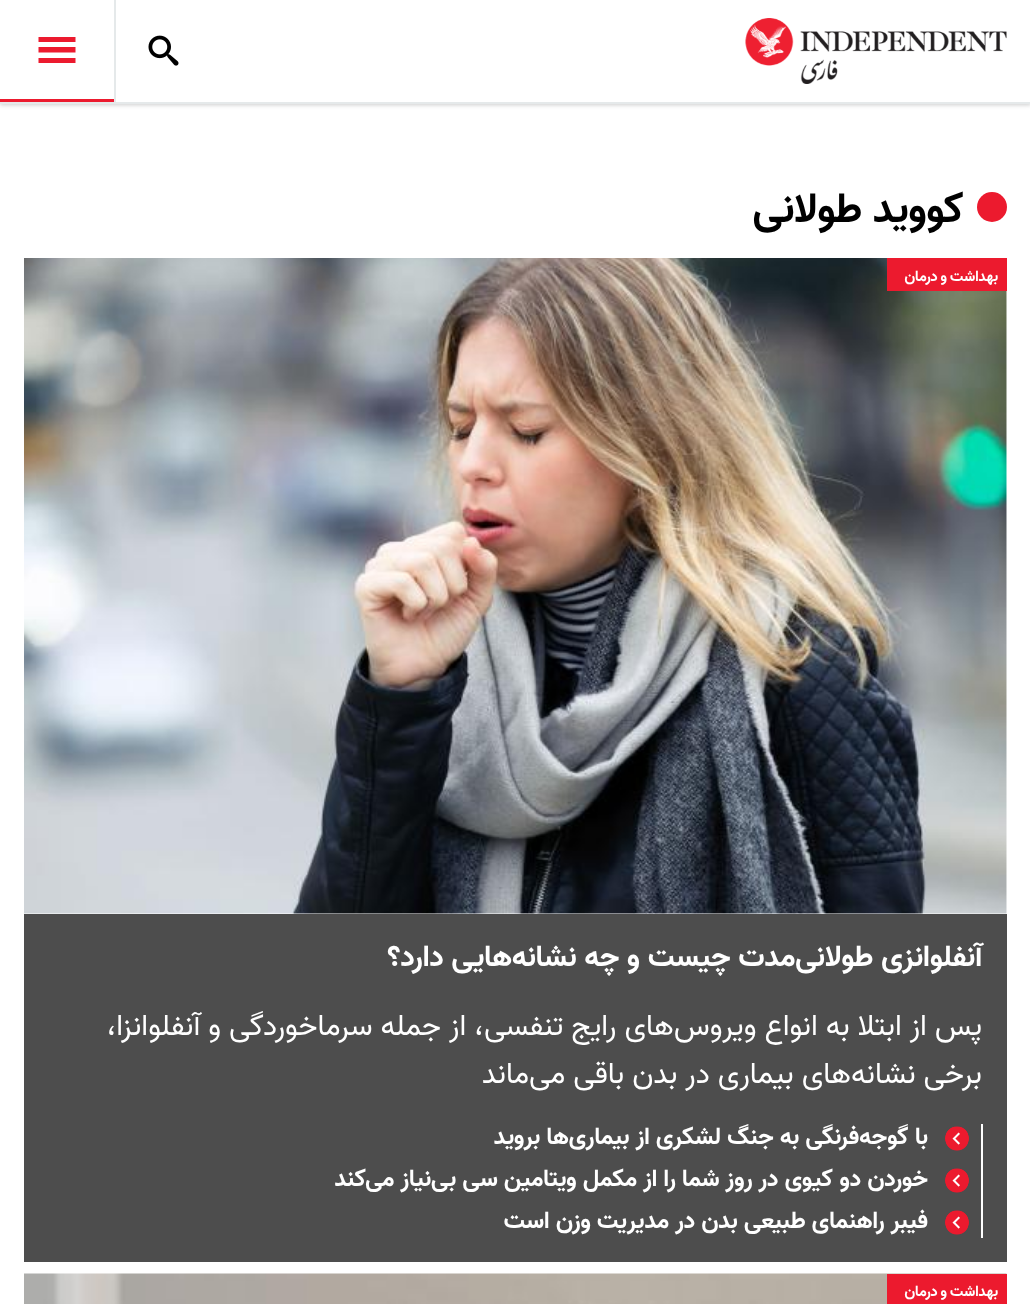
<?xml version="1.0" encoding="UTF-8"?>
<svg xmlns="http://www.w3.org/2000/svg" xmlns:xlink="http://www.w3.org/1999/xlink" width="1030" height="1304">
  <rect width="100%" height="100%" fill="#ffffff" />
  <rect y="2" width="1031" height="103" fill="#000000" fill-opacity="0.2" filter="blur(2px)" />
  <rect width="1030" height="102" fill="#ffffff" />
  <rect y="102" width="1030" height="2" fill="#e5e9ea" />
  <image x="745" y="18" width="262" height="66" xlink:href="image1.png" />
  <rect x="114" width="2" height="102" fill="#e5e9ea" />
  <image x="148" y="35" width="31" height="31" xlink:href="image2.png" />
  <path d="M 38.5 37 h 37 v 5 h -37 z m 0 10 h 37 v 5.5 h -37 z m 0 11 h 37 v 5 h -37 z" fill="#ec1a2e" />
  <rect y="99" width="114" height="3" fill="#ec1a2e" />
  <circle cx="992" cy="207" r="15" fill="#ec1a2e" />
  <image x="24" y="258" width="983" height="656" xlink:href="image3.png" />
  <rect x="887" y="258" width="120" height="33" fill="#ec1a2e" />
  <rect x="24" y="914" width="983" height="348" fill="#4d4d4d" />
  <rect x="981" y="1124" width="2" height="114" fill="#ffffff" />
  <path d="M 957 1126.5 c -15.5 0 -15.5 24 0 24 c 15.5 0 15.5 -24 0 -24 z" fill="#ec1a2e" />
  <image x="945" y="1127" width="24" height="24" xlink:href="image4.png" />
  <path d="M 957 1168.5 c -15.5 0 -15.5 24 0 24 c 15.5 0 15.5 -24 0 -24 z" fill="#ec1a2e" />
  <image x="945" y="1169" width="24" height="24" xlink:href="image4.png" />
  <path d="M 957 1210.5 c -15.5 0 -15.5 24 0 24 c 15.5 0 15.5 -24 0 -24 z" fill="#ec1a2e" />
  <image x="945" y="1211" width="24" height="24" xlink:href="image4.png" />
  <image x="24" y="1273" width="983" height="31" xlink:href="image5.png" />
  <rect x="887" y="1274" width="120" height="30" fill="#ec1a2e" />
  <text x="964" y="222" style="font-family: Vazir; font-size: 42px; font-weight: bold; direction: rtl; fill: #000000">کووید طولانی</text>
  <text x="998" y="281" word-spacing="-1" style="font-family: Vazir; font-size: 15px; font-weight: bold; letter-spacing: 0.4px; direction: rtl; fill: #ffffff">بهداشت و درمان</text>
  <text x="982" y="966" style="font-family: Vazir; font-size: 30px; font-weight: bold; direction: rtl; fill: #ffffff">آنفلوانزی طولانی‌مدت چیست و چه نشانه‌‌هایی دارد؟</text>
  <text x="982" y="1035" style="font-family: Vazir; font-size: 30px; direction: rtl; fill: #ffffff">پس از ابتلا به انواع ویروس‌های رایج تنفسی، از جمله سرماخوردگی و آنفلوانزا،</text>
  <text x="982" y="1083" style="font-family: Vazir; font-size: 30px; direction: rtl; fill: #ffffff">برخی نشانه‌های بیماری در بدن باقی می‌ماند</text>
  <text x="928" y="1144" style="font-family: Vazir; font-size: 24px; font-weight: bold; direction: rtl; fill: #ffffff">با گوجه‌فرنگی به جنگ لشکری از بیماری‌ها بروید</text>
  <text x="928" y="1186" style="font-family: Vazir; font-size: 24px; font-weight: bold; direction: rtl; fill: #ffffff">خوردن دو کیوی در روز شما را از مکمل ویتامین سی بی‌نیاز می‌کند</text>
  <text x="928" y="1228" style="font-family: Vazir; font-size: 24px; font-weight: bold; direction: rtl; fill: #ffffff">فیبر راهنمای طبیعی بدن در مدیریت وزن است</text>
  <text x="998" y="1296" word-spacing="-1" style="font-family: Vazir; font-size: 15px; font-weight: bold; letter-spacing: 0.4px; direction: rtl; fill: #ffffff">بهداشت و درمان</text>
</svg>
